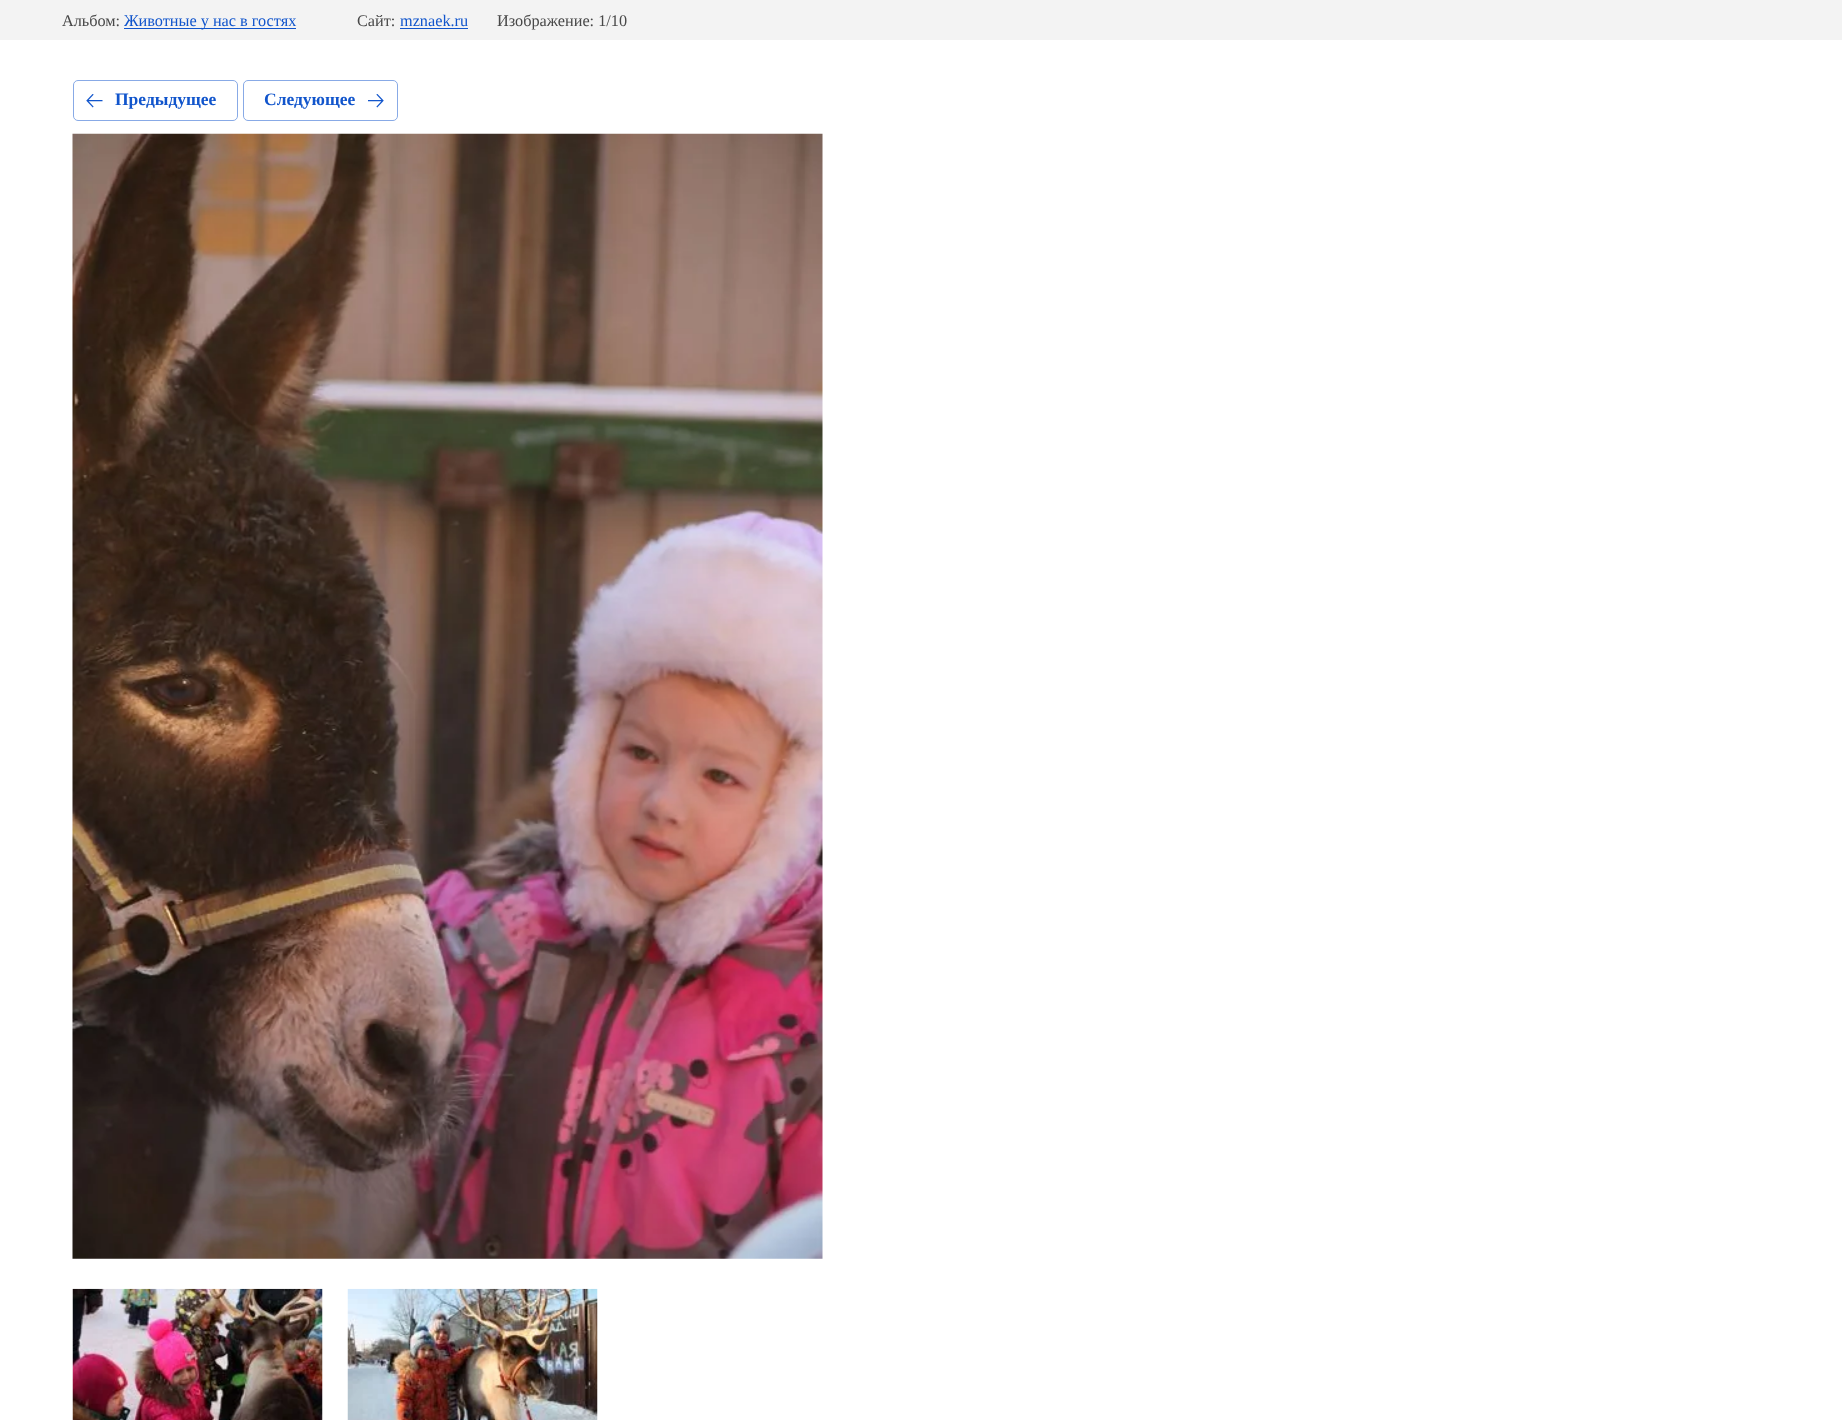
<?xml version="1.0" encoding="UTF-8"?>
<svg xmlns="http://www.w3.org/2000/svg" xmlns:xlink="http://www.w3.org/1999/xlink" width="1842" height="1420">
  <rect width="100%" height="100%" fill="#ffffff" />
  <rect width="1842" height="40" fill="#f3f3f3" />
  <rect x="124" y="28" width="172" height="1" fill="#1155cc" />
  <rect x="400" y="28" width="68" height="1" fill="#1155cc" />
  <rect x="73.5" y="80.5" width="164" height="40" rx="4.5" fill="none" stroke="#88aae6" />
  <image x="86" y="94" width="17" height="14" xlink:href="image1.png" />
  <rect x="243.5" y="80.5" width="154" height="40" rx="4.5" fill="none" stroke="#88aae6" />
  <image x="368" y="94" width="16" height="14" xlink:href="image2.png" />
  <image x="72" y="133" width="751" height="1126" xlink:href="image3.png" />
  <image x="72" y="1288" width="251" height="132" xlink:href="image4.png" />
  <image x="347" y="1288" width="251" height="132" xlink:href="image5.png" />
  <text x="62" y="26" style="font-family: Liberation Serif; font-size: 16.25px; fill: #484848">Альбом:</text>
  <text x="124" y="26" style="font-family: Liberation Serif; font-size: 16.25px; fill: #1155cc">Животные у нас в гостях</text>
  <text x="357" y="26" style="font-family: Liberation Serif; font-size: 16.25px; fill: #484848">Сайт:</text>
  <text x="400" y="26" style="font-family: Liberation Serif; font-size: 16.25px; fill: #1155cc">mznaek.ru</text>
  <text x="497" y="26" style="font-family: Liberation Serif; font-size: 16.25px; fill: #484848">Изображение: 1/10</text>
  <text x="115" y="105" style="font-family: Liberation Serif; font-size: 17.5px; font-weight: bold; fill: #1155cc">Предыдущее</text>
  <text x="264" y="105" style="font-family: Liberation Serif; font-size: 17.5px; font-weight: bold; fill: #1155cc">Следующее</text>
</svg>
